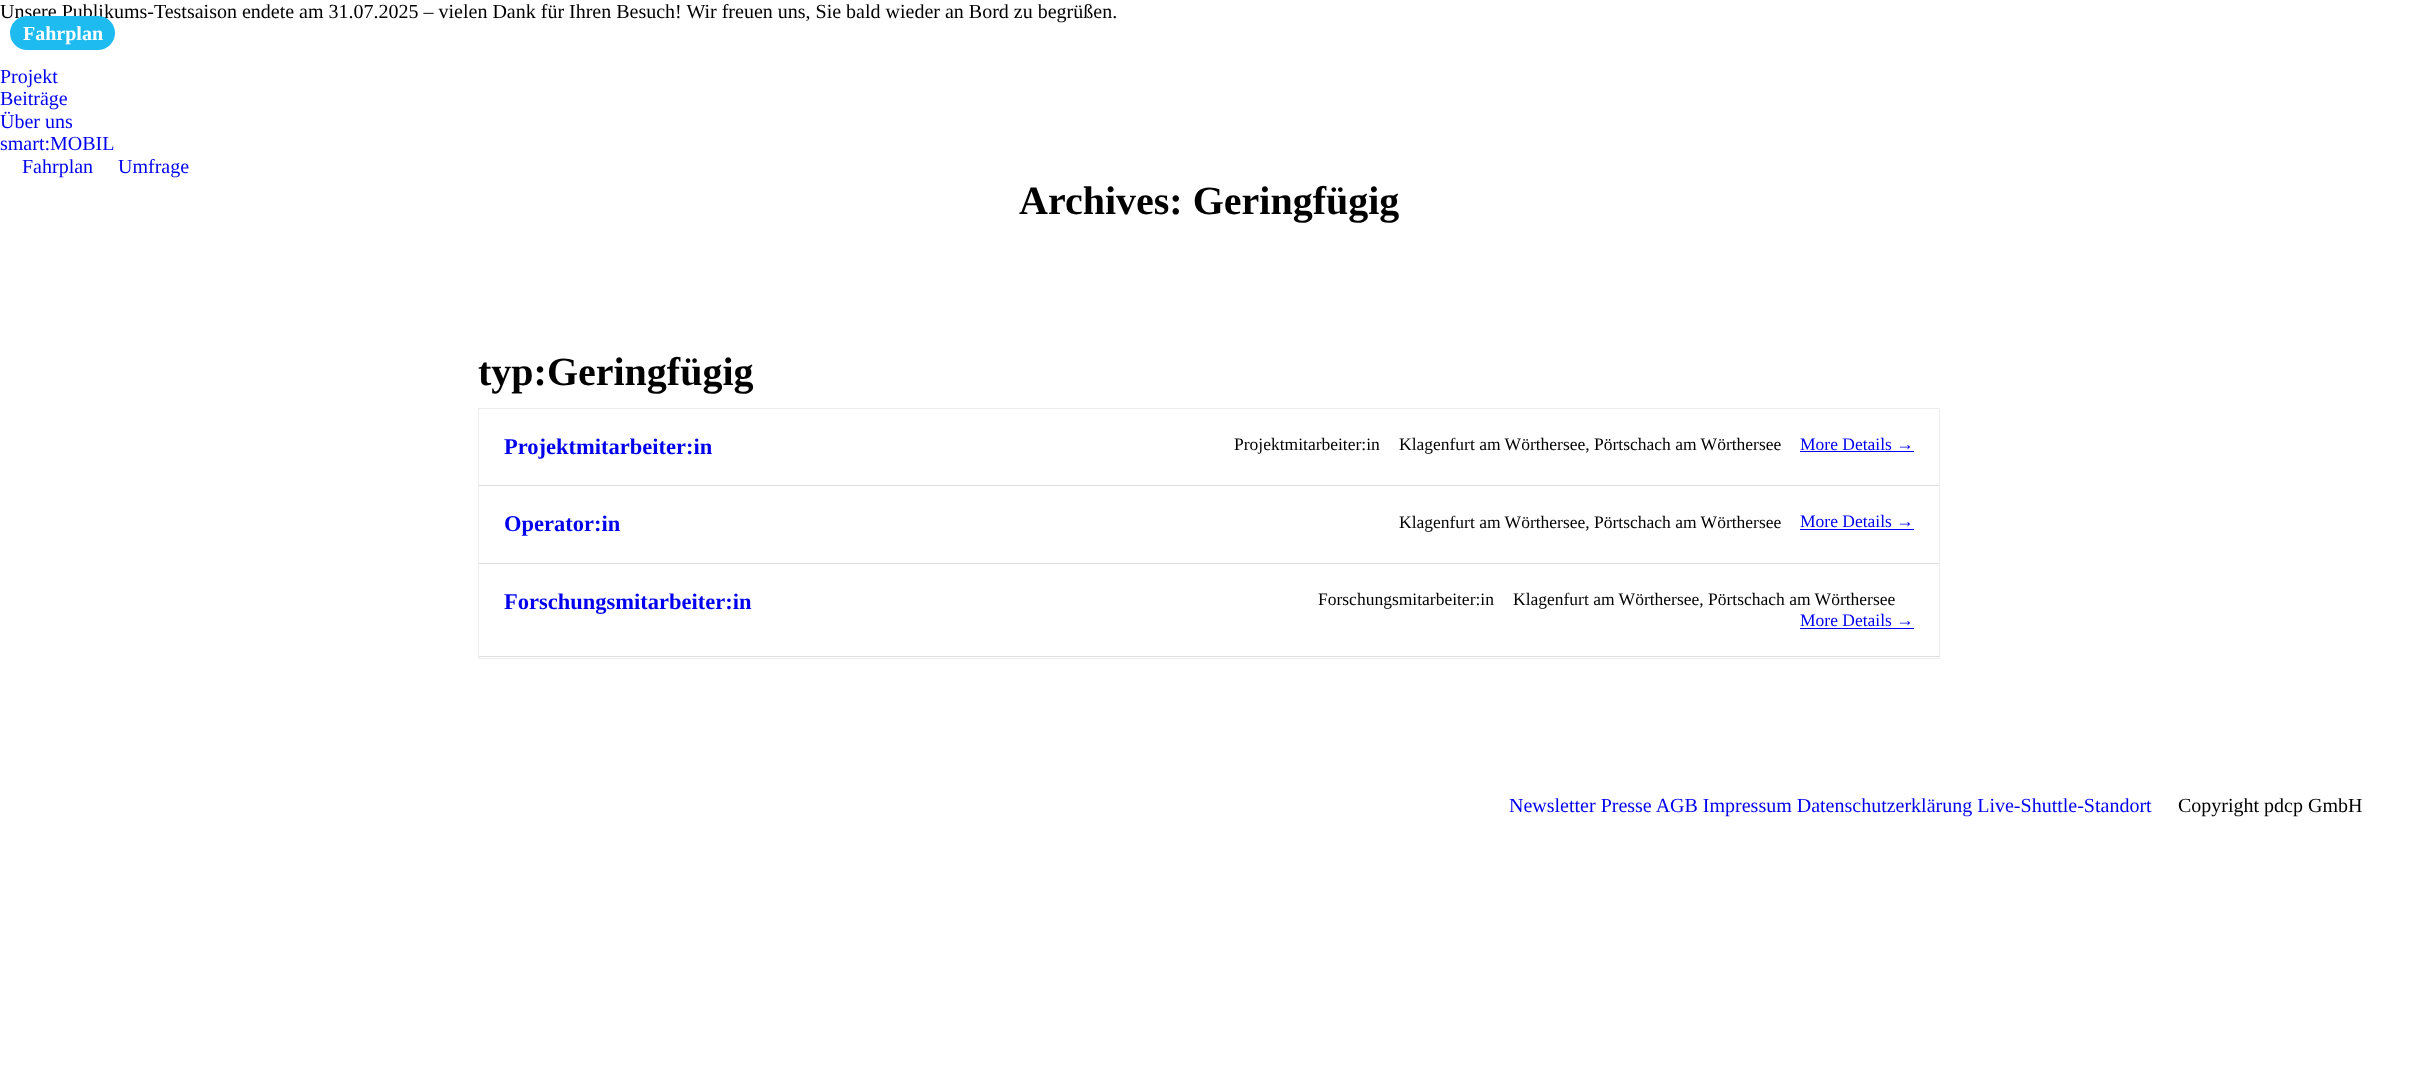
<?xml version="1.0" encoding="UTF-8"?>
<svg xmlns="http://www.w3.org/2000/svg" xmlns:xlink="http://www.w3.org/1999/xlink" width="2417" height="1080">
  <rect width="100%" height="100%" fill="#ffffff" />
  <rect x="478.5" y="408.5" width="1461" height="250" fill="none" stroke="#ededed" />
  <rect x="479" y="485" width="1460" height="1" fill="#dedede" />
  <rect x="1800" y="451" width="114" height="1" fill="#0000ee" />
  <rect x="479" y="563" width="1460" height="1" fill="#dedede" />
  <rect x="1800" y="529" width="114" height="1" fill="#0000ee" />
  <rect x="479" y="656" width="1460" height="1" fill="#dedede" />
  <rect x="1800" y="628" width="114" height="1" fill="#0000ee" />
  <text x="0" y="18" style="font-family: Liberation Serif; font-size: 20px; fill: #000000">Unsere Publikums-Testsaison endete am 31.07.2025 – vielen Dank für Ihren Besuch! Wir freuen uns, Sie bald wieder an Bord zu begrüßen.</text>
  <rect x="10" y="16" width="105" height="34" rx="17" fill="#1ebbf0" />
  <text x="23" y="40" style="font-family: Liberation Serif; font-size: 20px; font-weight: bold; fill: #ffffff">Fahrplan</text>
  <text x="0" y="83" style="font-family: Liberation Serif; font-size: 20px; fill: #0000ee">Projekt</text>
  <text x="0" y="105" style="font-family: Liberation Serif; font-size: 20px; fill: #0000ee">Beiträge</text>
  <text x="0" y="128" style="font-family: Liberation Serif; font-size: 20px; fill: #0000ee">Über uns</text>
  <text x="0" y="150" style="font-family: Liberation Serif; font-size: 20px; fill: #0000ee">smart:MOBIL</text>
  <text x="22" y="173" style="font-family: Liberation Serif; font-size: 20px; fill: #0000ee">Fahrplan</text>
  <text x="118" y="173" style="font-family: Liberation Serif; font-size: 20px; fill: #0000ee">Umfrage</text>
  <text x="1019" y="214" style="font-family: Liberation Serif; font-size: 40px; font-weight: bold; fill: #000000">Archives: Geringfügig</text>
  <text x="478" y="385" style="font-family: Liberation Serif; font-size: 40px; font-weight: bold; fill: #000000">typ:Geringfügig</text>
  <text x="504" y="454" style="font-family: Liberation Serif; font-size: 22.5px; font-weight: bold; fill: #0000ee">Projektmitarbeiter:in</text>
  <text x="1234" y="450" style="font-family: Liberation Serif; font-size: 17.5px; fill: #000000">Projektmitarbeiter:in</text>
  <text x="1399" y="450" style="font-family: Liberation Serif; font-size: 17.5px; fill: #000000">Klagenfurt am Wörthersee, Pörtschach am Wörthersee</text>
  <text x="1800" y="450" style="font-family: Liberation Serif; font-size: 17.5px; fill: #0000ee">More Details →</text>
  <text x="504" y="531" style="font-family: Liberation Serif; font-size: 22.5px; font-weight: bold; fill: #0000ee">Operator:in</text>
  <text x="1399" y="528" style="font-family: Liberation Serif; font-size: 17.5px; fill: #000000">Klagenfurt am Wörthersee, Pörtschach am Wörthersee</text>
  <text x="1800" y="527" style="font-family: Liberation Serif; font-size: 17.5px; fill: #0000ee">More Details →</text>
  <text x="504" y="609" style="font-family: Liberation Serif; font-size: 22.5px; font-weight: bold; fill: #0000ee">Forschungsmitarbeiter:in</text>
  <text x="1318" y="605" style="font-family: Liberation Serif; font-size: 17.5px; fill: #000000">Forschungsmitarbeiter:in</text>
  <text x="1513" y="605" style="font-family: Liberation Serif; font-size: 17.5px; fill: #000000">Klagenfurt am Wörthersee, Pörtschach am Wörthersee</text>
  <text x="1800" y="626" style="font-family: Liberation Serif; font-size: 17.5px; fill: #0000ee">More Details →</text>
  <text x="1509" y="812" style="font-family: Liberation Serif; font-size: 20px; fill: #0000ee">Newsletter Presse AGB Impressum Datenschutzerklärung Live-Shuttle-Standort</text>
  <text x="2178" y="812" style="font-family: Liberation Serif; font-size: 20px; fill: #000000">Copyright pdcp GmbH</text>
</svg>
